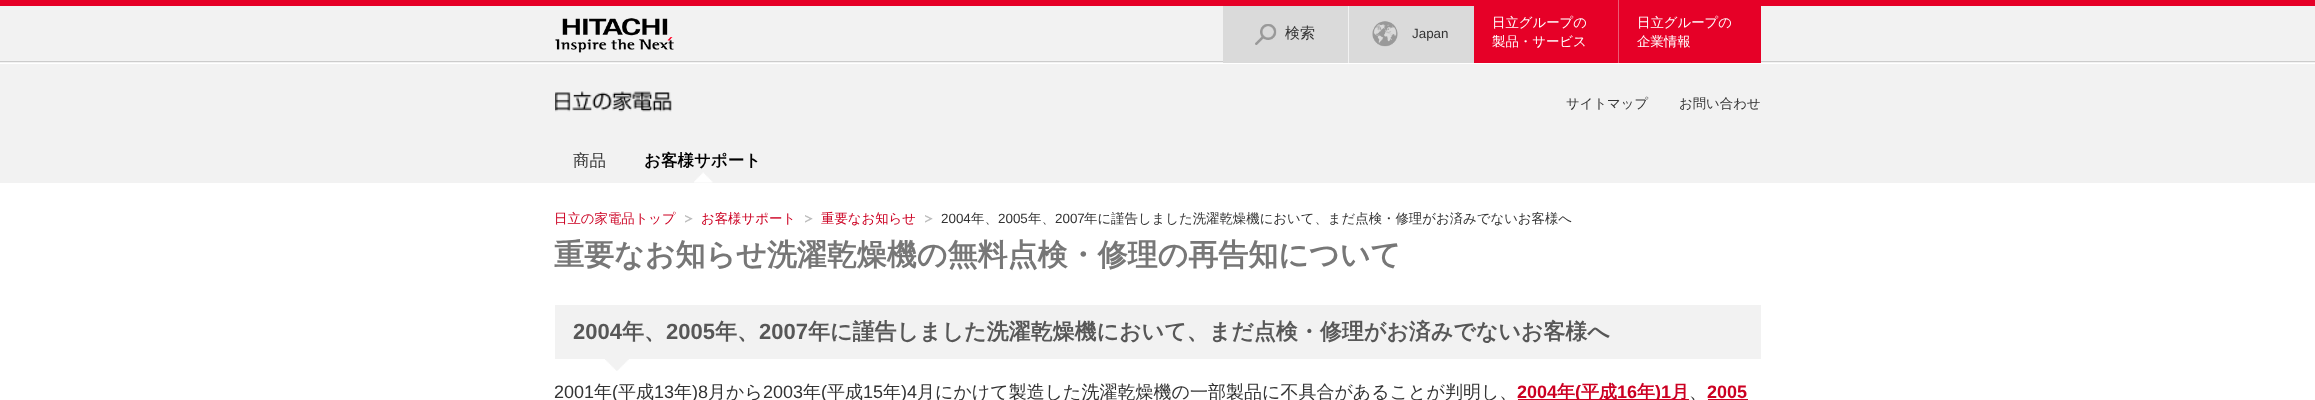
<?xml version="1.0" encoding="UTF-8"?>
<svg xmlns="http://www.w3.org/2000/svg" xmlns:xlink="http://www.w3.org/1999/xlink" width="2315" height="400">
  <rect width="100%" height="100%" fill="#f2f2f2" />
  <rect width="2315" height="6" fill="#e60027" />
  <image x="555" y="18" width="119" height="35" xlink:href="image1.png" />
  <rect y="61" width="2315" height="1" fill="#cccccc" />
  <rect x="1223" y="6" width="125" height="57" fill="#dadada" />
  <rect x="1348" y="61" width="1" height="2" fill="#f2f2f2" />
  <image x="1255" y="24" width="22" height="21" xlink:href="image2.png" />
  <rect x="1349" y="6" width="125" height="57" fill="#dadada" />
  <image x="1372" y="21" width="26" height="26" xlink:href="image3.png" />
  <rect x="1474" y="6" width="144" height="57" fill="#e60027" />
  <rect x="1619" y="6" width="142" height="57" fill="#e60027" />
  <rect x="1618" width="1" height="63" fill="#eb5b74" />
  <rect y="63" width="2315" height="1" fill="#ffffff" />
  <image x="555" y="91" width="117" height="21" xlink:href="image4.png" />
  <image x="694" y="172" width="19" height="11" xlink:href="image5.png" />
  <rect y="183" width="2315" height="217" fill="#ffffff" />
  <image x="685" y="215" width="8" height="8" xlink:href="image6.png" />
  <image x="805" y="215" width="8" height="8" xlink:href="image6.png" />
  <image x="925" y="215" width="8" height="8" xlink:href="image6.png" />
  <image x="605" y="359" width="24" height="12" xlink:href="image7.png" />
  <rect x="555" y="305" width="1206" height="54" fill="#f2f2f2" />
  <rect x="1518" y="399" width="171" height="1" fill="#cc0022" />
  <rect x="1708" y="399" width="40" height="1" fill="#cc0022" />
  <text x="1285" y="38" style="font-family: WenQuanYi Zen Hei; font-size: 15px; font-weight: 500; fill: #333333">検索</text>
  <text x="1412" y="38" style="font-family: Liberation Sans; font-size: 13.4px; fill: #333333">Japan</text>
  <text x="1492" y="27" style="font-family: WenQuanYi Zen Hei; font-size: 13.4px; font-weight: 500; fill: #ffffff">日立グループの</text>
  <text x="1492" y="46" style="font-family: WenQuanYi Zen Hei; font-size: 13.4px; font-weight: 500; fill: #ffffff">製品・サービス</text>
  <text x="1637" y="27" style="font-family: WenQuanYi Zen Hei; font-size: 13.4px; font-weight: 500; fill: #ffffff">日立グループの</text>
  <text x="1637" y="46" style="font-family: WenQuanYi Zen Hei; font-size: 13.4px; font-weight: 500; fill: #ffffff">企業情報</text>
  <text x="1566" y="108" style="font-family: WenQuanYi Zen Hei; font-size: 13.4px; font-weight: 500; fill: #333333">サイトマップ</text>
  <text x="1679" y="108" style="font-family: WenQuanYi Zen Hei; font-size: 13.4px; font-weight: 500; fill: #333333">お問い合わせ</text>
  <text x="573" y="166" style="font-family: WenQuanYi Zen Hei; font-size: 16.5px; font-weight: 500; fill: #333333">商品</text>
  <text x="644" y="166" style="font-family: WenQuanYi Zen Hei; font-size: 16.5px; font-weight: bold; fill: #000000">お客様サポート</text>
  <text x="554" y="223" style="font-family: WenQuanYi Zen Hei; font-size: 13.4px; font-weight: 500; fill: #cc0022">日立の家電品トップ</text>
  <text x="701" y="223" style="font-family: WenQuanYi Zen Hei; font-size: 13.4px; font-weight: 500; fill: #cc0022">お客様サポート</text>
  <text x="821" y="223" style="font-family: WenQuanYi Zen Hei; font-size: 13.4px; font-weight: 500; fill: #cc0022">重要なお知らせ</text>
  <text x="941" y="223" style="font-family: Liberation Sans; font-size: 13.4px; fill: #333333">2004</text>
  <text x="971" y="223" style="font-family: WenQuanYi Zen Hei; font-size: 13.4px; font-weight: 500; fill: #333333">年、</text>
  <text x="998" y="223" style="font-family: Liberation Sans; font-size: 13.4px; fill: #333333">2005</text>
  <text x="1028" y="223" style="font-family: WenQuanYi Zen Hei; font-size: 13.4px; font-weight: 500; fill: #333333">年、</text>
  <text x="1055" y="223" style="font-family: Liberation Sans; font-size: 13.4px; fill: #333333">2007</text>
  <text x="1084" y="223" style="font-family: WenQuanYi Zen Hei; font-size: 13.4px; font-weight: 500; fill: #333333">年に謹告しました洗濯乾燥機において、まだ点検・修理がお済みでないお客様へ</text>
  <text x="554" y="265" style="font-family: WenQuanYi Zen Hei; font-size: 30px; font-weight: bold; fill: #777777">重要なお知らせ洗濯乾燥機の無料点検・修理の再告知について</text>
  <text x="573" y="339" style="font-family: Liberation Sans; font-size: 22px; font-weight: bold; fill: #575757">2004</text>
  <text x="622" y="339" style="font-family: WenQuanYi Zen Hei; font-size: 22px; font-weight: bold; fill: #575757">年、</text>
  <text x="666" y="339" style="font-family: Liberation Sans; font-size: 22px; font-weight: bold; fill: #575757">2005</text>
  <text x="715" y="339" style="font-family: WenQuanYi Zen Hei; font-size: 22px; font-weight: bold; fill: #575757">年、</text>
  <text x="759" y="339" style="font-family: Liberation Sans; font-size: 22px; font-weight: bold; fill: #575757">2007</text>
  <text x="808" y="339" style="font-family: WenQuanYi Zen Hei; font-size: 22px; font-weight: bold; fill: #575757">年に謹告しました洗濯乾燥機において、まだ点検・修理がお済みでないお客様へ</text>
  <text x="554" y="398" style="font-family: Liberation Sans; font-size: 18px; fill: #333333">2001</text>
  <text x="594" y="398" style="font-family: WenQuanYi Zen Hei; font-size: 18px; font-weight: 500; fill: #333333">年</text>
  <text x="612" y="398" style="font-family: Liberation Sans; font-size: 18px; fill: #333333">(</text>
  <text x="618" y="398" style="font-family: WenQuanYi Zen Hei; font-size: 18px; font-weight: 500; fill: #333333">平成</text>
  <text x="654" y="398" style="font-family: Liberation Sans; font-size: 18px; fill: #333333">13</text>
  <text x="674" y="398" style="font-family: WenQuanYi Zen Hei; font-size: 18px; font-weight: 500; fill: #333333">年</text>
  <text x="692" y="398" style="font-family: Liberation Sans; font-size: 18px; fill: #333333">)8</text>
  <text x="708" y="398" style="font-family: WenQuanYi Zen Hei; font-size: 18px; font-weight: 500; fill: #333333">月から</text>
  <text x="763" y="398" style="font-family: Liberation Sans; font-size: 18px; fill: #333333">2003</text>
  <text x="803" y="398" style="font-family: WenQuanYi Zen Hei; font-size: 18px; font-weight: 500; fill: #333333">年</text>
  <text x="821" y="398" style="font-family: Liberation Sans; font-size: 18px; fill: #333333">(</text>
  <text x="827" y="398" style="font-family: WenQuanYi Zen Hei; font-size: 18px; font-weight: 500; fill: #333333">平成</text>
  <text x="863" y="398" style="font-family: Liberation Sans; font-size: 18px; fill: #333333">15</text>
  <text x="883" y="398" style="font-family: WenQuanYi Zen Hei; font-size: 18px; font-weight: 500; fill: #333333">年</text>
  <text x="901" y="398" style="font-family: Liberation Sans; font-size: 18px; fill: #333333">)4</text>
  <text x="917" y="398" style="font-family: WenQuanYi Zen Hei; font-size: 18px; font-weight: 500; fill: #333333">月にかけて製造した洗濯乾燥機の一部製品に不具合があることが判明し、</text>
  <text x="1517" y="398" style="font-family: Liberation Sans; font-size: 18px; font-weight: bold; fill: #cc0022">2004</text>
  <text x="1557" y="398" style="font-family: WenQuanYi Zen Hei; font-size: 18px; font-weight: bold; fill: #cc0022">年</text>
  <text x="1575" y="398" style="font-family: Liberation Sans; font-size: 18px; font-weight: bold; fill: #cc0022">(</text>
  <text x="1581" y="398" style="font-family: WenQuanYi Zen Hei; font-size: 18px; font-weight: bold; fill: #cc0022">平成</text>
  <text x="1617" y="398" style="font-family: Liberation Sans; font-size: 18px; font-weight: bold; fill: #cc0022">16</text>
  <text x="1637" y="398" style="font-family: WenQuanYi Zen Hei; font-size: 18px; font-weight: bold; fill: #cc0022">年</text>
  <text x="1655" y="398" style="font-family: Liberation Sans; font-size: 18px; font-weight: bold; fill: #cc0022">)1</text>
  <text x="1671" y="398" style="font-family: WenQuanYi Zen Hei; font-size: 18px; font-weight: bold; fill: #cc0022">月</text>
  <text x="1689" y="398" style="font-family: WenQuanYi Zen Hei; font-size: 18px; font-weight: 500; fill: #333333">、</text>
  <text x="1707" y="398" style="font-family: Liberation Sans; font-size: 18px; font-weight: bold; fill: #cc0022">2005</text>
</svg>
